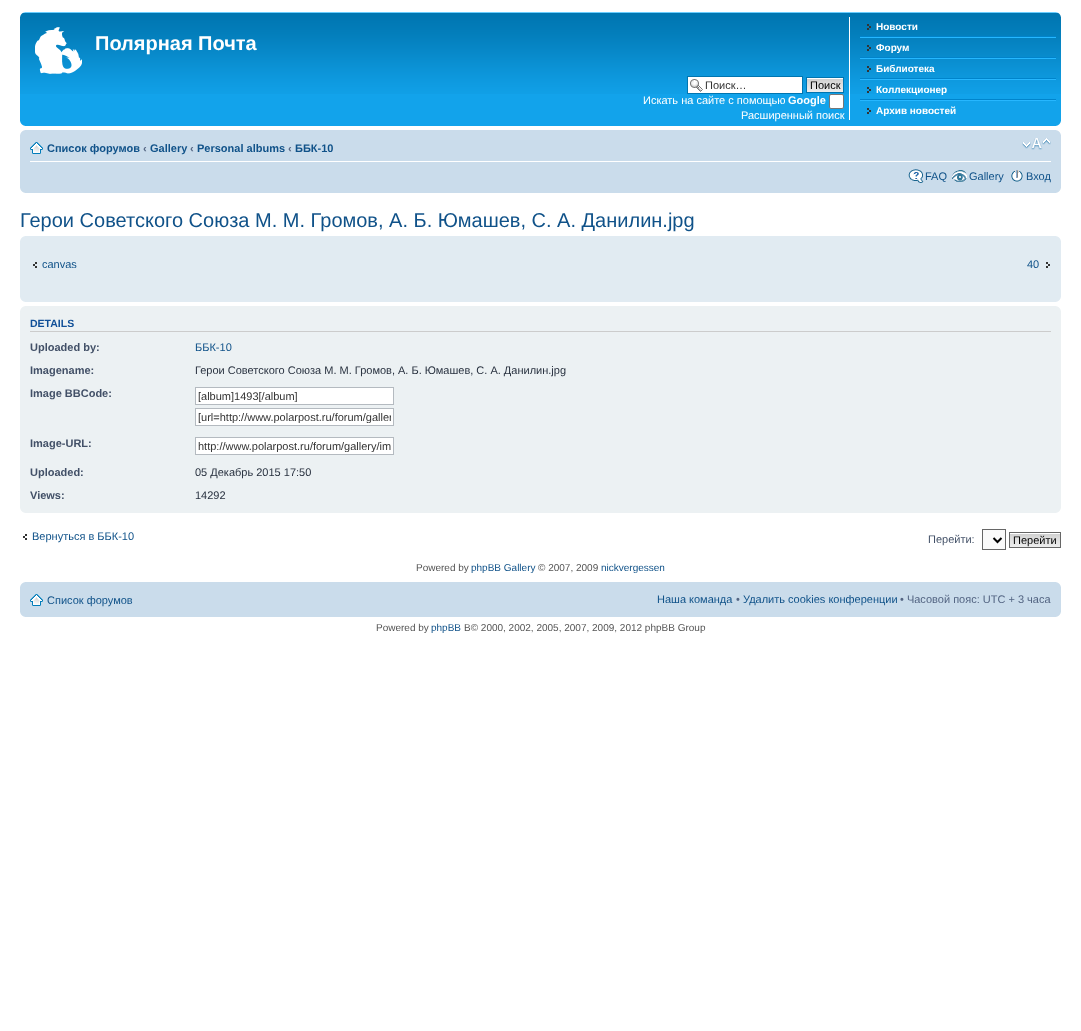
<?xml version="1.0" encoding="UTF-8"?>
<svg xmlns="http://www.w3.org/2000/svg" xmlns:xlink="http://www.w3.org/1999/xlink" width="1081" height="1031">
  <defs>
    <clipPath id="clip1"><rect x="198" y="390" width="193" height="12" /></clipPath>
    <clipPath id="clip2"><rect x="198" y="411" width="193" height="12" /></clipPath>
    <clipPath id="clip3"><rect x="198" y="440" width="193" height="12" /></clipPath>
  </defs>
  <rect width="100%" height="100%" fill="#ffffff" />
  <rect x="20" y="94" width="1041" height="32" fill="#12a3eb" />
  <image x="20" y="12" width="1041" height="82" xlink:href="image1.png" />
  <image x="20" y="12" width="5" height="5" xlink:href="image2.png" />
  <image x="1056" y="12" width="5" height="5" xlink:href="image3.png" />
  <image x="35" y="27" width="47" height="47" xlink:href="image4.png" />
  <rect x="849" y="17" width="1" height="103" fill="#ffffff" />
  <rect x="860" y="36" width="196" height="1" fill="#0084cc" />
  <image x="867" y="24" width="4" height="6" xlink:href="image5.png" />
  <rect x="860" y="37" width="196" height="1" fill="#26b7ff" />
  <rect x="860" y="57" width="196" height="1" fill="#0084cc" />
  <image x="867" y="45" width="4" height="6" xlink:href="image6.png" />
  <rect x="860" y="58" width="196" height="1" fill="#26b7ff" />
  <rect x="860" y="78" width="196" height="1" fill="#0084cc" />
  <image x="867" y="66" width="4" height="6" xlink:href="image7.png" />
  <rect x="860" y="79" width="196" height="1" fill="#26b7ff" />
  <rect x="860" y="99" width="196" height="1" fill="#0084cc" />
  <image x="867" y="87" width="4" height="6" xlink:href="image8.png" />
  <rect x="860" y="100" width="196" height="1" fill="#26b7ff" />
  <image x="867" y="108" width="4" height="6" xlink:href="image9.png" />
  <rect x="688" y="77" width="114" height="16" fill="#ffffff" />
  <image x="690" y="79" width="13" height="13" xlink:href="image10.png" />
  <rect x="687.5" y="76.5" width="115" height="17" fill="none" stroke="#0075b0" />
  <image x="807" y="78" width="36" height="14" xlink:href="image11.png" />
  <rect x="806.5" y="77.5" width="37" height="15" fill="none" stroke="#0075b0" />
  <rect x="829.5" y="94.5" width="14" height="14" rx="1.5" fill="#ffffff" stroke="#767676" />
  <image x="20" y="121" width="5" height="5" xlink:href="image12.png" />
  <image x="1056" y="121" width="5" height="5" xlink:href="image13.png" />
  <rect x="20" y="130" width="1041" height="63" fill="#cadceb" />
  <image x="20" y="130" width="5" height="5" xlink:href="image14.png" />
  <image x="1056" y="130" width="5" height="5" xlink:href="image15.png" />
  <rect x="30" y="161" width="1021" height="1" fill="#ffffff" />
  <image x="30" y="142" width="13" height="12" xlink:href="image16.png" />
  <image x="1022" y="138" width="29" height="12" xlink:href="image17.png" />
  <image x="908" y="169" width="16" height="14" xlink:href="image18.png" />
  <image x="952" y="170" width="15" height="12" xlink:href="image19.png" />
  <image x="1011" y="170" width="12" height="12" xlink:href="image20.png" />
  <image x="20" y="188" width="5" height="5" xlink:href="image21.png" />
  <image x="1056" y="188" width="5" height="5" xlink:href="image22.png" />
  <rect x="20" y="236" width="1041" height="66" fill="#e1ebf2" />
  <image x="20" y="236" width="5" height="5" xlink:href="image23.png" />
  <image x="1056" y="236" width="5" height="5" xlink:href="image24.png" />
  <image x="33" y="262" width="4" height="6" xlink:href="image25.png" />
  <image x="1046" y="262" width="4" height="6" xlink:href="image26.png" />
  <image x="20" y="297" width="5" height="5" xlink:href="image27.png" />
  <image x="1056" y="297" width="5" height="5" xlink:href="image28.png" />
  <rect x="20" y="306" width="1041" height="207" fill="#ecf1f3" />
  <image x="20" y="306" width="5" height="5" xlink:href="image29.png" />
  <image x="1056" y="306" width="5" height="5" xlink:href="image30.png" />
  <rect x="30" y="331" width="1021" height="1" fill="#cccccc" />
  <rect x="195.5" y="387.5" width="198" height="17" fill="#ffffff" stroke="#b4bac0" />
  <rect x="195.5" y="408.5" width="198" height="17" fill="#ffffff" stroke="#b4bac0" />
  <rect x="195.5" y="437.5" width="198" height="17" fill="#ffffff" stroke="#b4bac0" />
  <image x="20" y="508" width="5" height="5" xlink:href="image31.png" />
  <image x="1056" y="508" width="5" height="5" xlink:href="image32.png" />
  <image x="23" y="534" width="4" height="6" xlink:href="image33.png" />
  <rect x="982.5" y="529.5" width="23" height="20" fill="#fafafa" stroke="#666666" />
  <path d="M 993.5 538 l 4 4 l 4 -4" fill="none" stroke="#000000" stroke-width="2" />
  <image x="1010" y="533" width="50" height="14" xlink:href="image34.png" />
  <rect x="1009.5" y="532.5" width="51" height="15" fill="none" stroke="#666666" />
  <rect x="20" y="582" width="1041" height="35" fill="#cadceb" />
  <image x="20" y="582" width="5" height="5" xlink:href="image14.png" />
  <image x="1056" y="582" width="5" height="5" xlink:href="image15.png" />
  <image x="30" y="594" width="13" height="12" xlink:href="image16.png" />
  <image x="20" y="612" width="5" height="5" xlink:href="image21.png" />
  <image x="1056" y="612" width="5" height="5" xlink:href="image22.png" />
  <text x="95" y="50" style="font-family: Liberation Sans; font-size: 20px; font-weight: bold; fill: #ffffff">Полярная Почта</text>
  <text x="876" y="30" style="font-family: Liberation Sans; font-size: 10px; font-weight: bold; fill: #ffffff">Новости</text>
  <text x="876" y="51" style="font-family: Liberation Sans; font-size: 10px; font-weight: bold; fill: #ffffff">Форум</text>
  <text x="876" y="72" style="font-family: Liberation Sans; font-size: 10px; font-weight: bold; fill: #ffffff">Библиотека</text>
  <text x="876" y="93" style="font-family: Liberation Sans; font-size: 10px; font-weight: bold; fill: #ffffff">Коллекционер</text>
  <text x="876" y="114" style="font-family: Liberation Sans; font-size: 10px; font-weight: bold; fill: #ffffff">Архив новостей</text>
  <text x="705" y="89" style="font-family: Liberation Sans; font-size: 11px; fill: #333333">Поиск…</text>
  <text x="810" y="89" style="font-family: Liberation Sans; font-size: 11px; fill: #000000">Поиск</text>
  <text x="643" y="104" style="font-family: Liberation Sans; font-size: 11px; fill: #ffffff">Искать на сайте с помощью</text>
  <text x="788" y="104" style="font-family: Liberation Sans; font-size: 11px; font-weight: bold; fill: #ffffff">Google</text>
  <text x="741" y="119" style="font-family: Liberation Sans; font-size: 11px; fill: #ffffff">Расширенный поиск</text>
  <text x="47" y="152" style="font-family: Liberation Sans; font-size: 11px; font-weight: bold; fill: #105289">Список форумов</text>
  <text x="143" y="152" style="font-family: Liberation Sans; font-size: 11px; font-weight: bold; fill: #536482">‹</text>
  <text x="150" y="152" style="font-family: Liberation Sans; font-size: 11px; font-weight: bold; fill: #105289">Gallery</text>
  <text x="190" y="152" style="font-family: Liberation Sans; font-size: 11px; font-weight: bold; fill: #536482">‹</text>
  <text x="197" y="152" style="font-family: Liberation Sans; font-size: 11px; font-weight: bold; fill: #105289">Personal albums</text>
  <text x="288" y="152" style="font-family: Liberation Sans; font-size: 11px; font-weight: bold; fill: #536482">‹</text>
  <text x="295" y="152" style="font-family: Liberation Sans; font-size: 11px; font-weight: bold; fill: #105289">ББК-10</text>
  <text x="925" y="180" style="font-family: Liberation Sans; font-size: 11px; fill: #105289">FAQ</text>
  <text x="969" y="180" style="font-family: Liberation Sans; font-size: 11px; fill: #105289">Gallery</text>
  <text x="1026" y="180" style="font-family: Liberation Sans; font-size: 11px; fill: #105289">Вход</text>
  <text x="20" y="227" style="font-family: Liberation Sans; font-size: 20px; fill: #105289">Герои Советского Союза М. М. Громов, А. Б. Юмашев, С. А. Данилин.jpg</text>
  <text x="42" y="268" style="font-family: Liberation Sans; font-size: 11px; fill: #105289">canvas</text>
  <text x="1027" y="268" style="font-family: Liberation Sans; font-size: 11px; fill: #105289">40</text>
  <text x="30" y="327" style="font-family: Liberation Sans; font-size: 10.5px; font-weight: bold; fill: #115098">DETAILS</text>
  <text x="30" y="351" style="font-family: Liberation Sans; font-size: 11px; font-weight: bold; fill: #425067">Uploaded by:</text>
  <text x="195" y="351" style="font-family: Liberation Sans; font-size: 11px; fill: #105289">ББК-10</text>
  <text x="30" y="374" style="font-family: Liberation Sans; font-size: 11px; font-weight: bold; fill: #425067">Imagename:</text>
  <text x="195" y="374" style="font-family: Liberation Sans; font-size: 11px; fill: #28313f">Герои Советского Союза М. М. Громов, А. Б. Юмашев, С. А. Данилин.jpg</text>
  <text x="30" y="397" style="font-family: Liberation Sans; font-size: 11px; font-weight: bold; fill: #425067">Image BBCode:</text>
  <g clip-path="url(#clip1)">
    <text x="198" y="400" style="font-family: Liberation Sans; font-size: 11px; fill: #333333">[album]1493[/album]</text>
  </g>
  <g clip-path="url(#clip2)">
    <text x="198" y="421" style="font-family: Liberation Sans; font-size: 11px; fill: #333333">[url=http://www.polarpost.ru/forum/galler</text>
  </g>
  <text x="30" y="447" style="font-family: Liberation Sans; font-size: 11px; font-weight: bold; fill: #425067">Image-URL:</text>
  <g clip-path="url(#clip3)">
    <text x="198" y="450" style="font-family: Liberation Sans; font-size: 11px; fill: #333333">http://www.polarpost.ru/forum/gallery/im</text>
  </g>
  <text x="30" y="476" style="font-family: Liberation Sans; font-size: 11px; font-weight: bold; fill: #425067">Uploaded:</text>
  <text x="195" y="476" style="font-family: Liberation Sans; font-size: 11px; fill: #28313f">05 Декабрь 2015 17:50</text>
  <text x="30" y="499" style="font-family: Liberation Sans; font-size: 11px; font-weight: bold; fill: #425067">Views:</text>
  <text x="195" y="499" style="font-family: Liberation Sans; font-size: 11px; fill: #28313f">14292</text>
  <text x="32" y="540" style="font-family: Liberation Sans; font-size: 11px; fill: #105289">Вернуться в ББК-10</text>
  <text x="928" y="543" style="font-family: Liberation Sans; font-size: 11px; fill: #425067">Перейти:</text>
  <text x="1013" y="544" style="font-family: Liberation Sans; font-size: 11px; fill: #000000">Перейти</text>
  <text x="416" y="571" style="font-family: Liberation Sans; font-size: 10px; fill: #555555">Powered by</text>
  <text x="471" y="571" style="font-family: Liberation Sans; font-size: 10px; fill: #105289">phpBB Gallery</text>
  <text x="538" y="571" style="font-family: Liberation Sans; font-size: 10px; fill: #555555">© 2007, 2009</text>
  <text x="601" y="571" style="font-family: Liberation Sans; font-size: 10px; fill: #105289">nickvergessen</text>
  <text x="47" y="604" style="font-family: Liberation Sans; font-size: 11px; fill: #105289">Список форумов</text>
  <text x="657" y="603" style="font-family: Liberation Sans; font-size: 11px; fill: #105289">Наша команда</text>
  <text x="736" y="603" style="font-family: Liberation Sans; font-size: 11px; fill: #536482">•</text>
  <text x="743" y="603" style="font-family: Liberation Sans; font-size: 11px; fill: #105289">Удалить cookies конференции</text>
  <text x="900" y="603" style="font-family: Liberation Sans; font-size: 11px; fill: #536482">• Часовой пояс: UTC + 3 часа</text>
  <text x="376" y="631" style="font-family: Liberation Sans; font-size: 10px; fill: #555555">Powered by</text>
  <text x="431" y="631" style="font-family: Liberation Sans; font-size: 10px; fill: #105289">phpBB</text>
  <text x="464" y="631" style="font-family: Liberation Sans; font-size: 10px; fill: #555555">В© 2000, 2002, 2005, 2007, 2009, 2012 phpBB Group</text>
</svg>
